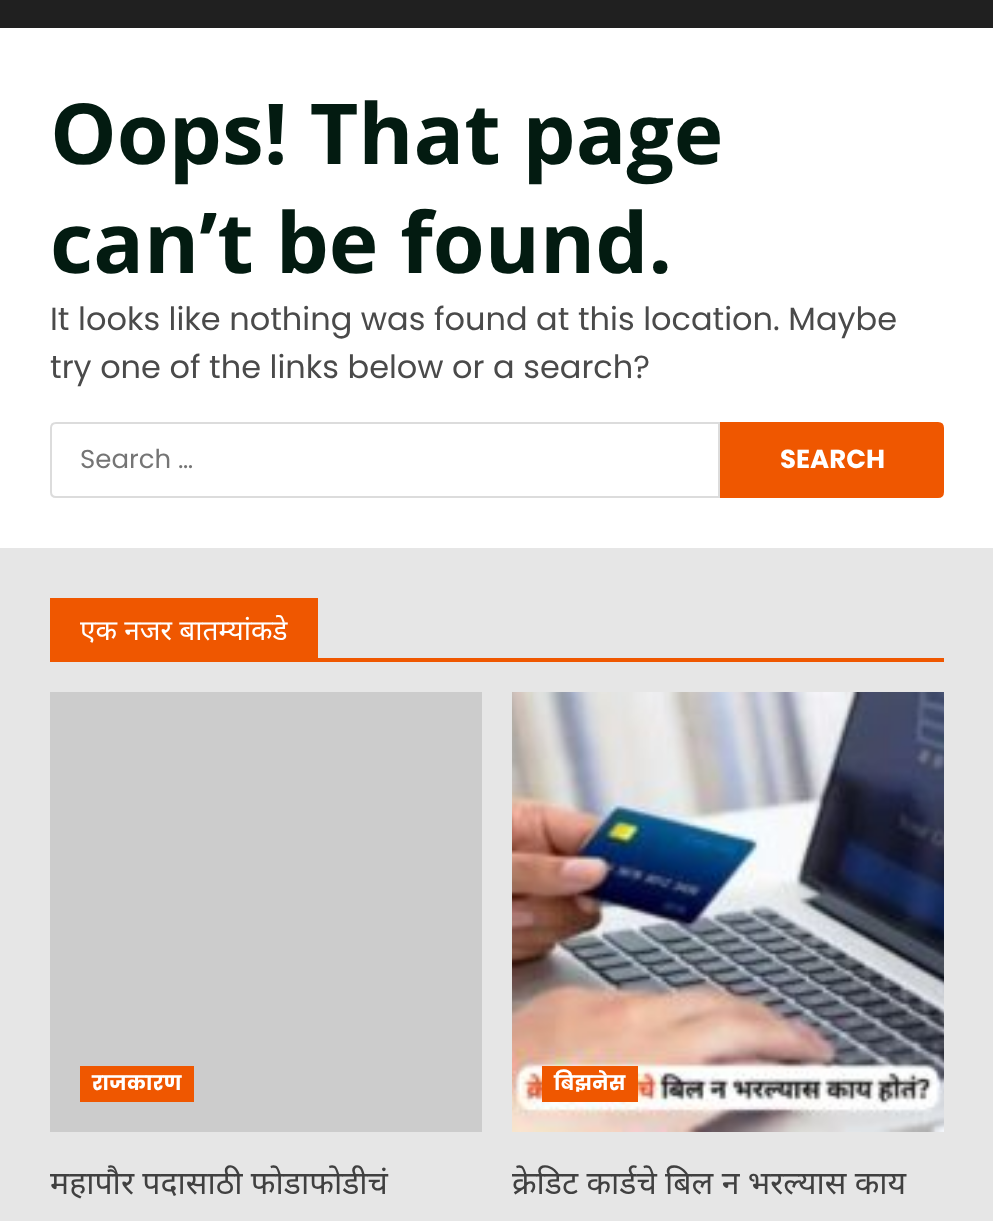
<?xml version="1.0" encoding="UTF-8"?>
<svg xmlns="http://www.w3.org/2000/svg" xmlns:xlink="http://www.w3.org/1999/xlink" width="993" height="1221">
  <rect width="100%" height="100%" fill="#ffffff" />
  <rect width="993" height="28" fill="#202020" />
  <path d="M 56 423 h 663 v 74 h -663 c -3 0 -5 -2 -5 -5 v -64 c 0 -3 2 -5 5 -5 z" fill="none" stroke="#dcdcdc" stroke-width="2" />
  <path d="M 721 423 h 217 c 3 0 5 2 5 5 v 64 c 0 3 -2 5 -5 5 h -217 z" fill="#ef5700" stroke="#ef5700" stroke-width="2" />
  <rect y="548" width="993" height="673" fill="#e6e6e6" />
  <rect x="50" y="658" width="894" height="4" fill="#ef5700" />
  <rect x="50" y="598" width="268" height="60" fill="#ef5700" />
  <rect x="50" y="692" width="432" height="440" fill="#cccccc" />
  <rect x="80" y="1066" width="114" height="36" fill="#ef5700" />
  <image x="512" y="692" width="432" height="440" xlink:href="image1.png" />
  <rect x="542" y="1066" width="96" height="36" fill="#ef5700" />
  <text x="50" y="164" style="font-family: Open Sans; font-size: 84px; font-weight: bold; fill: #031b11">Oops! That page</text>
  <text x="50" y="273" style="font-family: Open Sans; font-size: 84px; font-weight: bold; fill: #031b11">can’t be found.</text>
  <text x="50" y="330" style="font-family: Poppins; font-size: 32px; fill: #4a4a4a">It looks like nothing was found at this location. Maybe</text>
  <text x="50" y="378" style="font-family: Poppins; font-size: 32px; fill: #4a4a4a">try one of the links below or a search?</text>
  <text x="80" y="468" style="font-family: Poppins; font-size: 26px; fill: #757575">Search …</text>
  <text x="780" y="468" style="font-family: Poppins; font-size: 26px; font-weight: bold; fill: #ffffff">SEARCH</text>
  <text x="80" y="640" style="font-family: Noto Sans; font-size: 28px; fill: #ffffff">एक नजर बातम्यांकडे</text>
  <text x="92" y="1090" style="font-family: Poppins; font-size: 20px; font-weight: bold; letter-spacing: 0.25px; fill: #ffffff">राजकारण</text>
  <text x="50" y="1194" style="font-family: Noto Sans; font-size: 32px; fill: #404040">महापाैर पदासाठी फोडाफोडीचं</text>
  <text x="554" y="1090" style="font-family: Poppins; font-size: 20px; font-weight: bold; letter-spacing: 0.25px; fill: #ffffff">बिझनेस</text>
  <text x="512" y="1194" style="font-family: Noto Sans; font-size: 32px; fill: #404040">क्रेडिट कार्डचे बिल न भरल्यास काय</text>
</svg>
